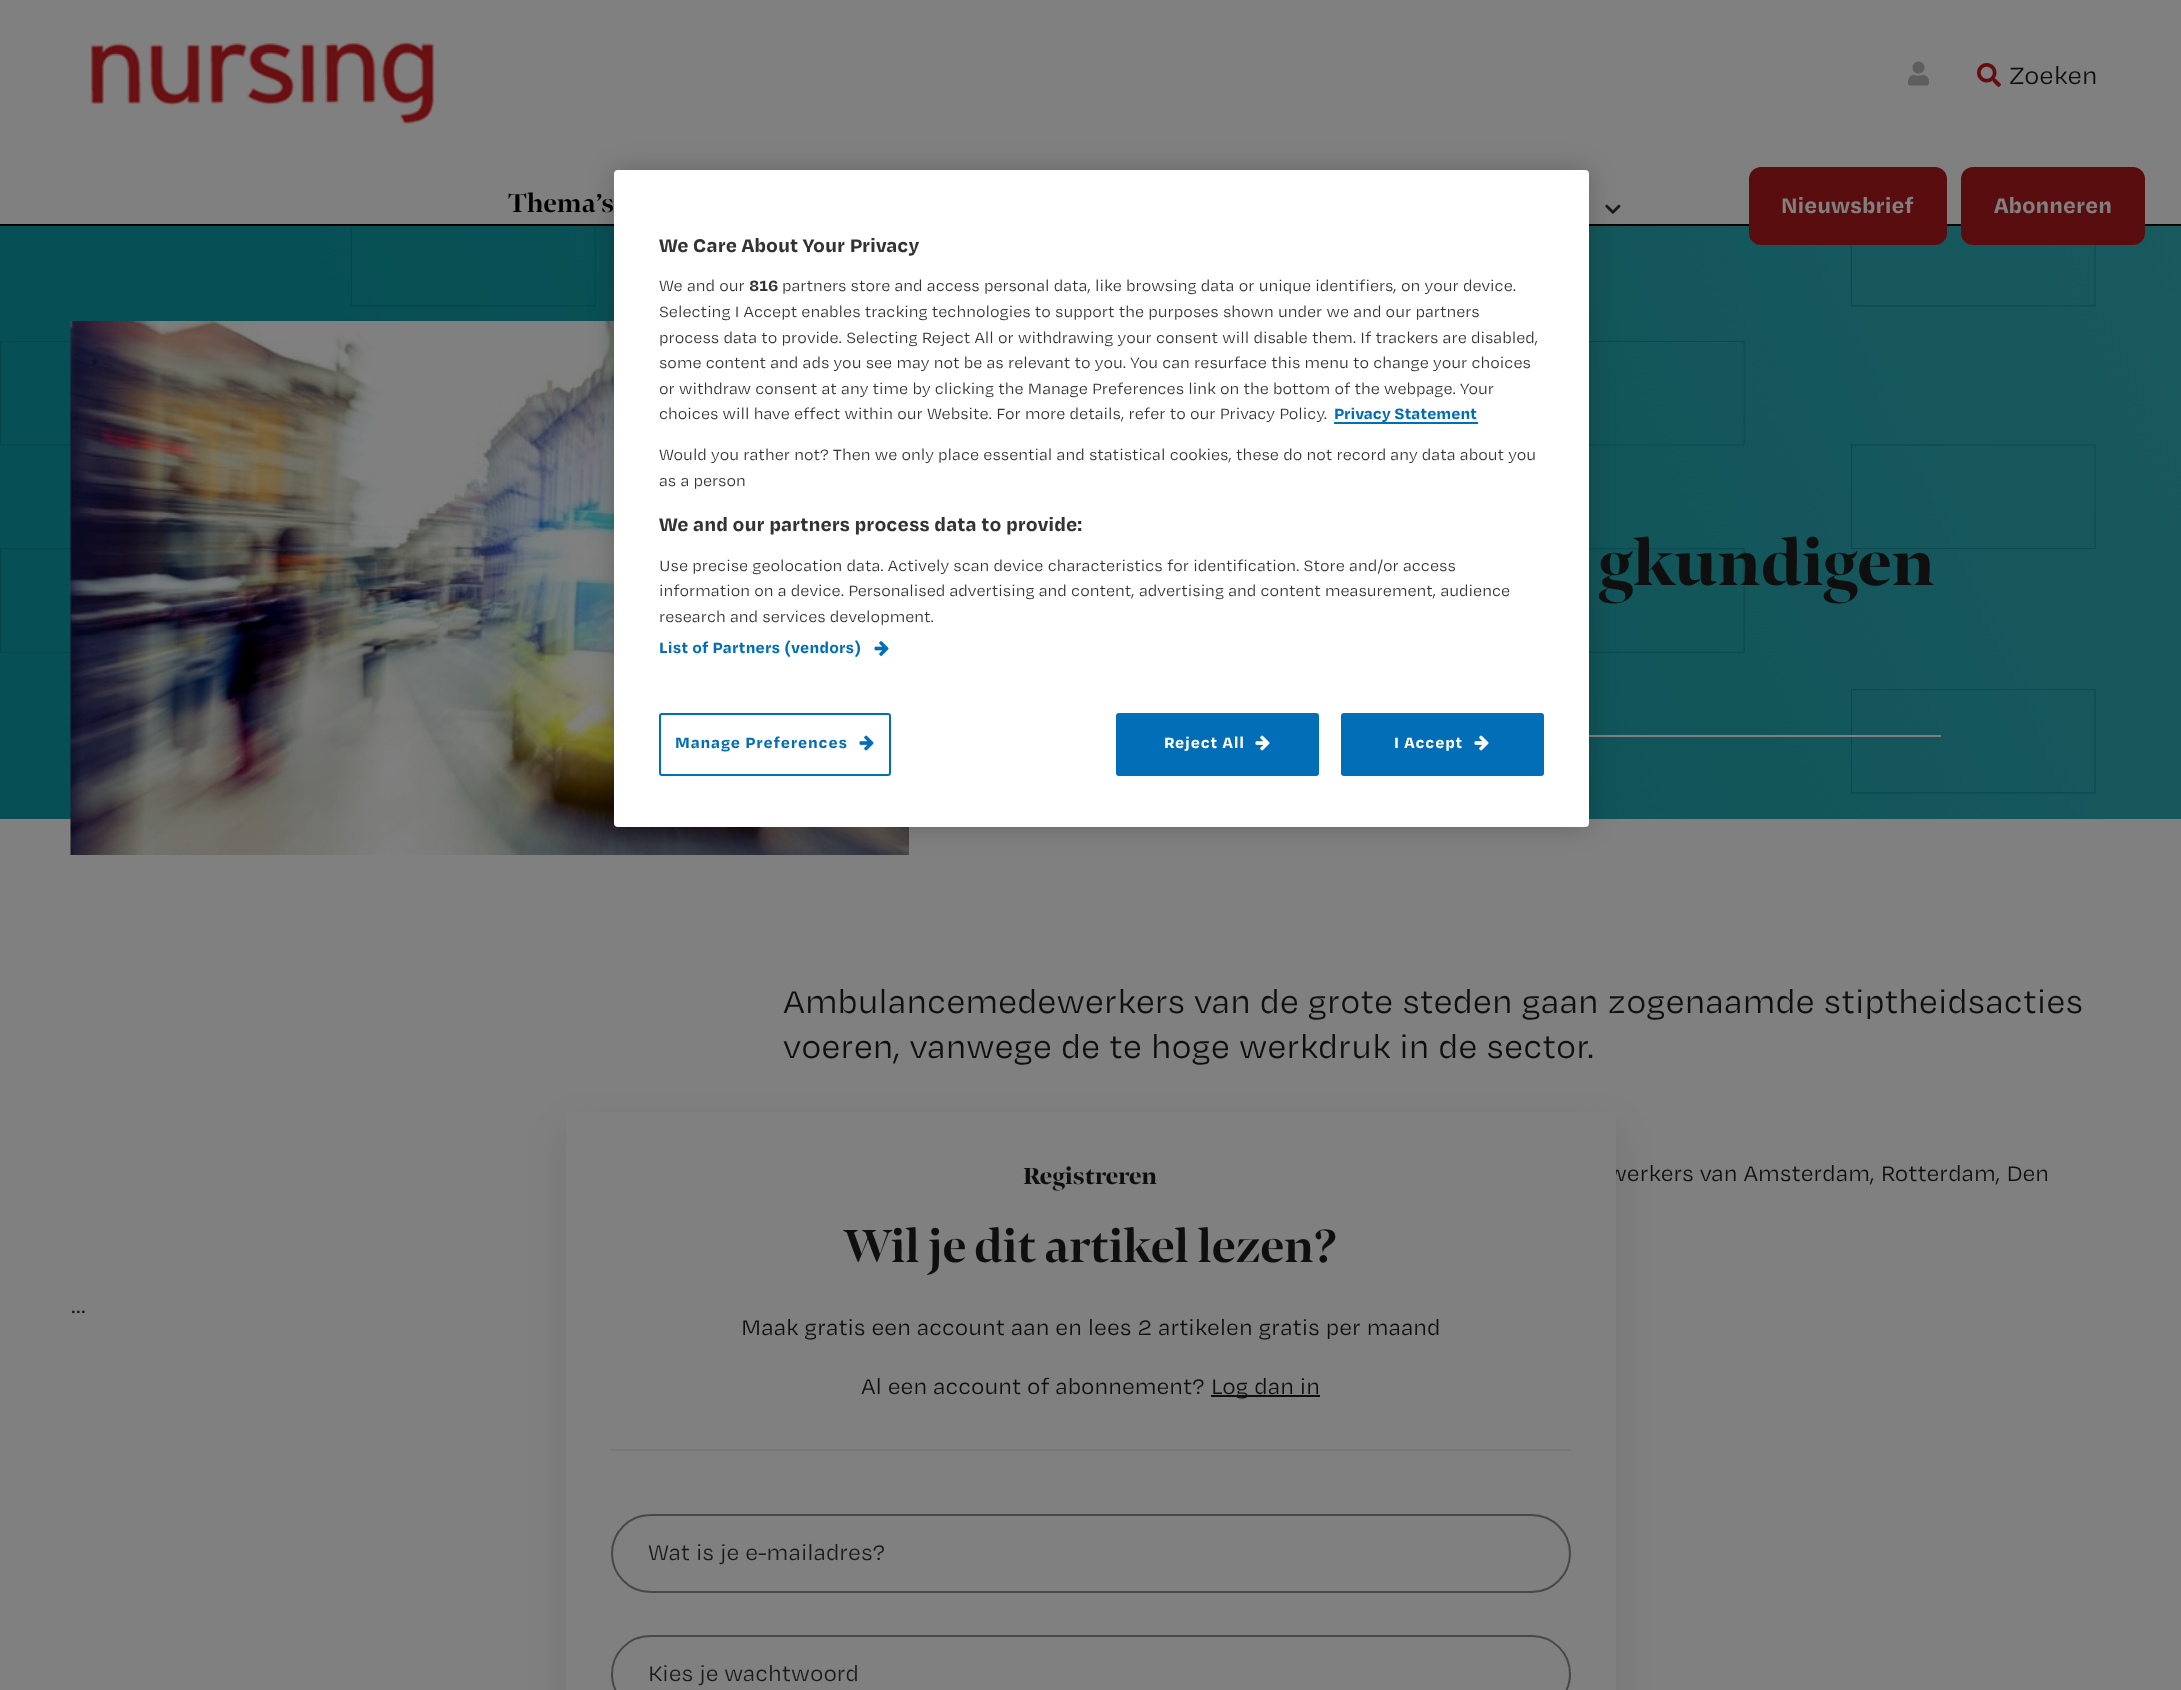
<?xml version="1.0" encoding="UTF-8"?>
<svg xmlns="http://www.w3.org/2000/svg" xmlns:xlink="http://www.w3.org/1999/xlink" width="2181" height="1690">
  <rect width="100%" height="100%" fill="#808080" />
  <rect y="224" width="2181" height="2" fill="#000000" />
  <image x="90" y="41" width="345" height="83" xlink:href="image1.png" />
  <image x="1908" y="61" width="21" height="25" xlink:href="image2.png" />
  <image x="1977" y="63" width="24" height="24" xlink:href="image3.png" />
  <image x="1605" y="204" width="16" height="10" xlink:href="image4.png" />
  <image x="0" y="226" width="2181" height="593" xlink:href="image5.png" />
  <rect x="1750.5" y="168.5" width="195" height="75" rx="10.5" fill="#5a0d0f" stroke="#5a0d0f" stroke-width="3" />
  <rect x="1962.5" y="168.5" width="181" height="75" rx="10.5" fill="#5a0d0f" stroke="#5a0d0f" stroke-width="3" />
  <image x="70" y="321" width="839" height="534" xlink:href="image6.png" />
  <rect x="1589" y="735" width="352" height="2" fill="#808080" />
  <rect x="566" y="1128" width="1050" height="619" fill="#000000" fill-opacity="0.1" filter="blur(19px)" />
  <rect x="614" y="170" width="975" height="657" rx="4" fill="#000000" fill-opacity="0.2" filter="blur(13.5px)" />
  <rect x="614" y="170" width="975" height="657" rx="4" fill="#ffffff" />
  <rect x="1334" y="422" width="144" height="2" fill="#016eb7" />
  <image x="874" y="641" width="15" height="15" xlink:href="image7.png" />
  <rect x="660" y="714" width="230" height="61" rx="2" fill="none" stroke="#016eb7" stroke-width="2" />
  <image x="859" y="735" width="15" height="16" xlink:href="image8.png" />
  <rect x="1117" y="714" width="201" height="61" rx="2" fill="#016eb7" stroke="#016eb7" stroke-width="2" />
  <image x="1255" y="735" width="15" height="16" xlink:href="image9.png" />
  <rect x="1342" y="714" width="201" height="61" rx="2" fill="#016eb7" stroke="#016eb7" stroke-width="2" />
  <image x="1474" y="735" width="15" height="16" xlink:href="image9.png" />
  <text x="2009" y="84" style="font-family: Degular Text; font-size: 27px; fill: #0f0f0f">Zoeken</text>
  <text x="508" y="212" style="font-family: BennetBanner; font-size: 27px; font-weight: bold; fill: #000000">Thema’s</text>
  <text x="1781" y="213" style="font-family: Degular Text; font-size: 24px; font-weight: bold; fill: #808080">Nieuwsbrief</text>
  <text x="1994" y="213" style="font-family: Degular Text; font-size: 24px; font-weight: bold; fill: #808080">Abonneren</text>
  <text x="1598" y="585" style="font-family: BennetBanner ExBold; font-size: 66px; font-weight: 800; fill: #0f0f0f">gkundigen</text>
  <text x="783" y="1013" style="font-family: Degular Text; font-size: 36px; fill: #0f0f0f">Ambulancemedewerkers van de grote steden gaan zogenaamde stiptheidsacties</text>
  <text x="783" y="1058" style="font-family: Degular Text; font-size: 36px; fill: #0f0f0f">voeren, vanwege de te hoge werkdruk in de sector.</text>
  <text x="1608" y="1181" style="font-family: Degular Text; font-size: 24px; fill: #0f0f0f">werkers van Amsterdam, Rotterdam, Den</text>
  <text x="71" y="1313" style="font-family: Degular Text; font-size: 24px; fill: #0f0f0f">…</text>
  <rect x="566" y="1112" width="1050" height="578" fill="#808080" />
  <text x="1023" y="1184" style="font-family: BennetBanner ExBold; font-size: 24px; font-weight: 800; fill: #0f0f0f">Registreren</text>
  <text x="843" y="1262" style="font-family: BennetBanner; font-size: 48px; font-weight: bold; fill: #0f0f0f">Wil je dit artikel lezen?</text>
  <text x="741" y="1335" style="font-family: Degular Text; font-size: 24px; fill: #0f0f0f">Maak gratis een account aan en lees 2 artikelen gratis per maand</text>
  <text x="861" y="1394" style="font-family: Degular Text; font-size: 24px; fill: #0f0f0f">Al een account of abonnement?</text>
  <rect x="1211" y="1395" width="109" height="2" fill="#0f0f0f" />
  <text x="1211" y="1394" style="font-family: Degular Text; font-size: 24px; fill: #0f0f0f">Log dan in</text>
  <rect x="611" y="1449" width="960" height="2" fill="#777777" />
  <rect x="612" y="1515" width="958" height="77" rx="38.5" fill="none" stroke="#484848" stroke-width="2" />
  <text x="648" y="1560" style="font-family: Degular Text; font-size: 24px; fill: #1a1a1a">Wat is je e-mailadres?</text>
  <rect x="612" y="1636" width="958" height="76" rx="38" fill="none" stroke="#484848" stroke-width="2" />
  <text x="648" y="1681" style="font-family: Degular Text; font-size: 24px; fill: #1a1a1a">Kies je wachtwoord</text>
  <text x="659" y="252" style="font-family: Degular Text; font-size: 21px; font-weight: bold; fill: #333333">We Care About Your Privacy</text>
  <text x="659" y="291" style="font-family: Degular Text; font-size: 17.07px; fill: #333333">We and our</text>
  <text x="749" y="291" style="font-family: Degular Text; font-size: 17.07px; font-weight: bold; fill: #333333">816</text>
  <text x="782" y="291" style="font-family: Degular Text; font-size: 17.07px; fill: #333333">partners store and access personal data, like browsing data or unique identifiers, on your device.</text>
  <text x="659" y="317" style="font-family: Degular Text; font-size: 17.07px; fill: #333333">Selecting I Accept enables tracking technologies to support the purposes shown under we and our partners</text>
  <text x="659" y="343" style="font-family: Degular Text; font-size: 17.07px; fill: #333333">process data to provide. Selecting Reject All or withdrawing your consent will disable them. If trackers are disabled,</text>
  <text x="659" y="368" style="font-family: Degular Text; font-size: 17.07px; fill: #333333">some content and ads you see may not be as relevant to you. You can resurface this menu to change your choices</text>
  <text x="659" y="394" style="font-family: Degular Text; font-size: 17.07px; fill: #333333">or withdraw consent at any time by clicking the Manage Preferences link on the bottom of the webpage. Your</text>
  <text x="659" y="419" style="font-family: Degular Text; font-size: 17.07px; fill: #333333">choices will have effect within our Website. For more details, refer to our Privacy Policy.</text>
  <text x="1334" y="419" style="font-family: Degular Text; font-size: 17.07px; font-weight: bold; fill: #016eb7">Privacy Statement</text>
  <text x="659" y="460" style="font-family: Degular Text; font-size: 17.07px; fill: #333333">Would you rather not? Then we only place essential and statistical cookies, these do not record any data about you</text>
  <text x="659" y="486" style="font-family: Degular Text; font-size: 17.07px; fill: #333333">as a person</text>
  <text x="659" y="531" style="font-family: Degular Text; font-size: 21px; font-weight: bold; fill: #333333">We and our partners process data to provide:</text>
  <text x="659" y="571" style="font-family: Degular Text; font-size: 17.07px; fill: #333333">Use precise geolocation data. Actively scan device characteristics for identification. Store and/or access</text>
  <text x="659" y="596" style="font-family: Degular Text; font-size: 17.07px; fill: #333333">information on a device. Personalised advertising and content, advertising and content measurement, audience</text>
  <text x="659" y="622" style="font-family: Degular Text; font-size: 17.07px; fill: #333333">research and services development.</text>
  <text x="659" y="653" style="font-family: Degular Text; font-size: 17.07px; font-weight: bold; letter-spacing: 0.2px; fill: #016eb7">List of Partners (vendors)</text>
  <text x="675" y="748" style="font-family: Degular Text; font-size: 17.07px; font-weight: bold; letter-spacing: 0.8px; fill: #016eb7">Manage Preferences</text>
  <text x="1164" y="748" style="font-family: Degular Text; font-size: 17.07px; font-weight: bold; letter-spacing: 0.8px; fill: #ffffff">Reject All</text>
  <text x="1394" y="748" style="font-family: Degular Text; font-size: 17.07px; font-weight: bold; letter-spacing: 0.8px; fill: #ffffff">I Accept</text>
</svg>
